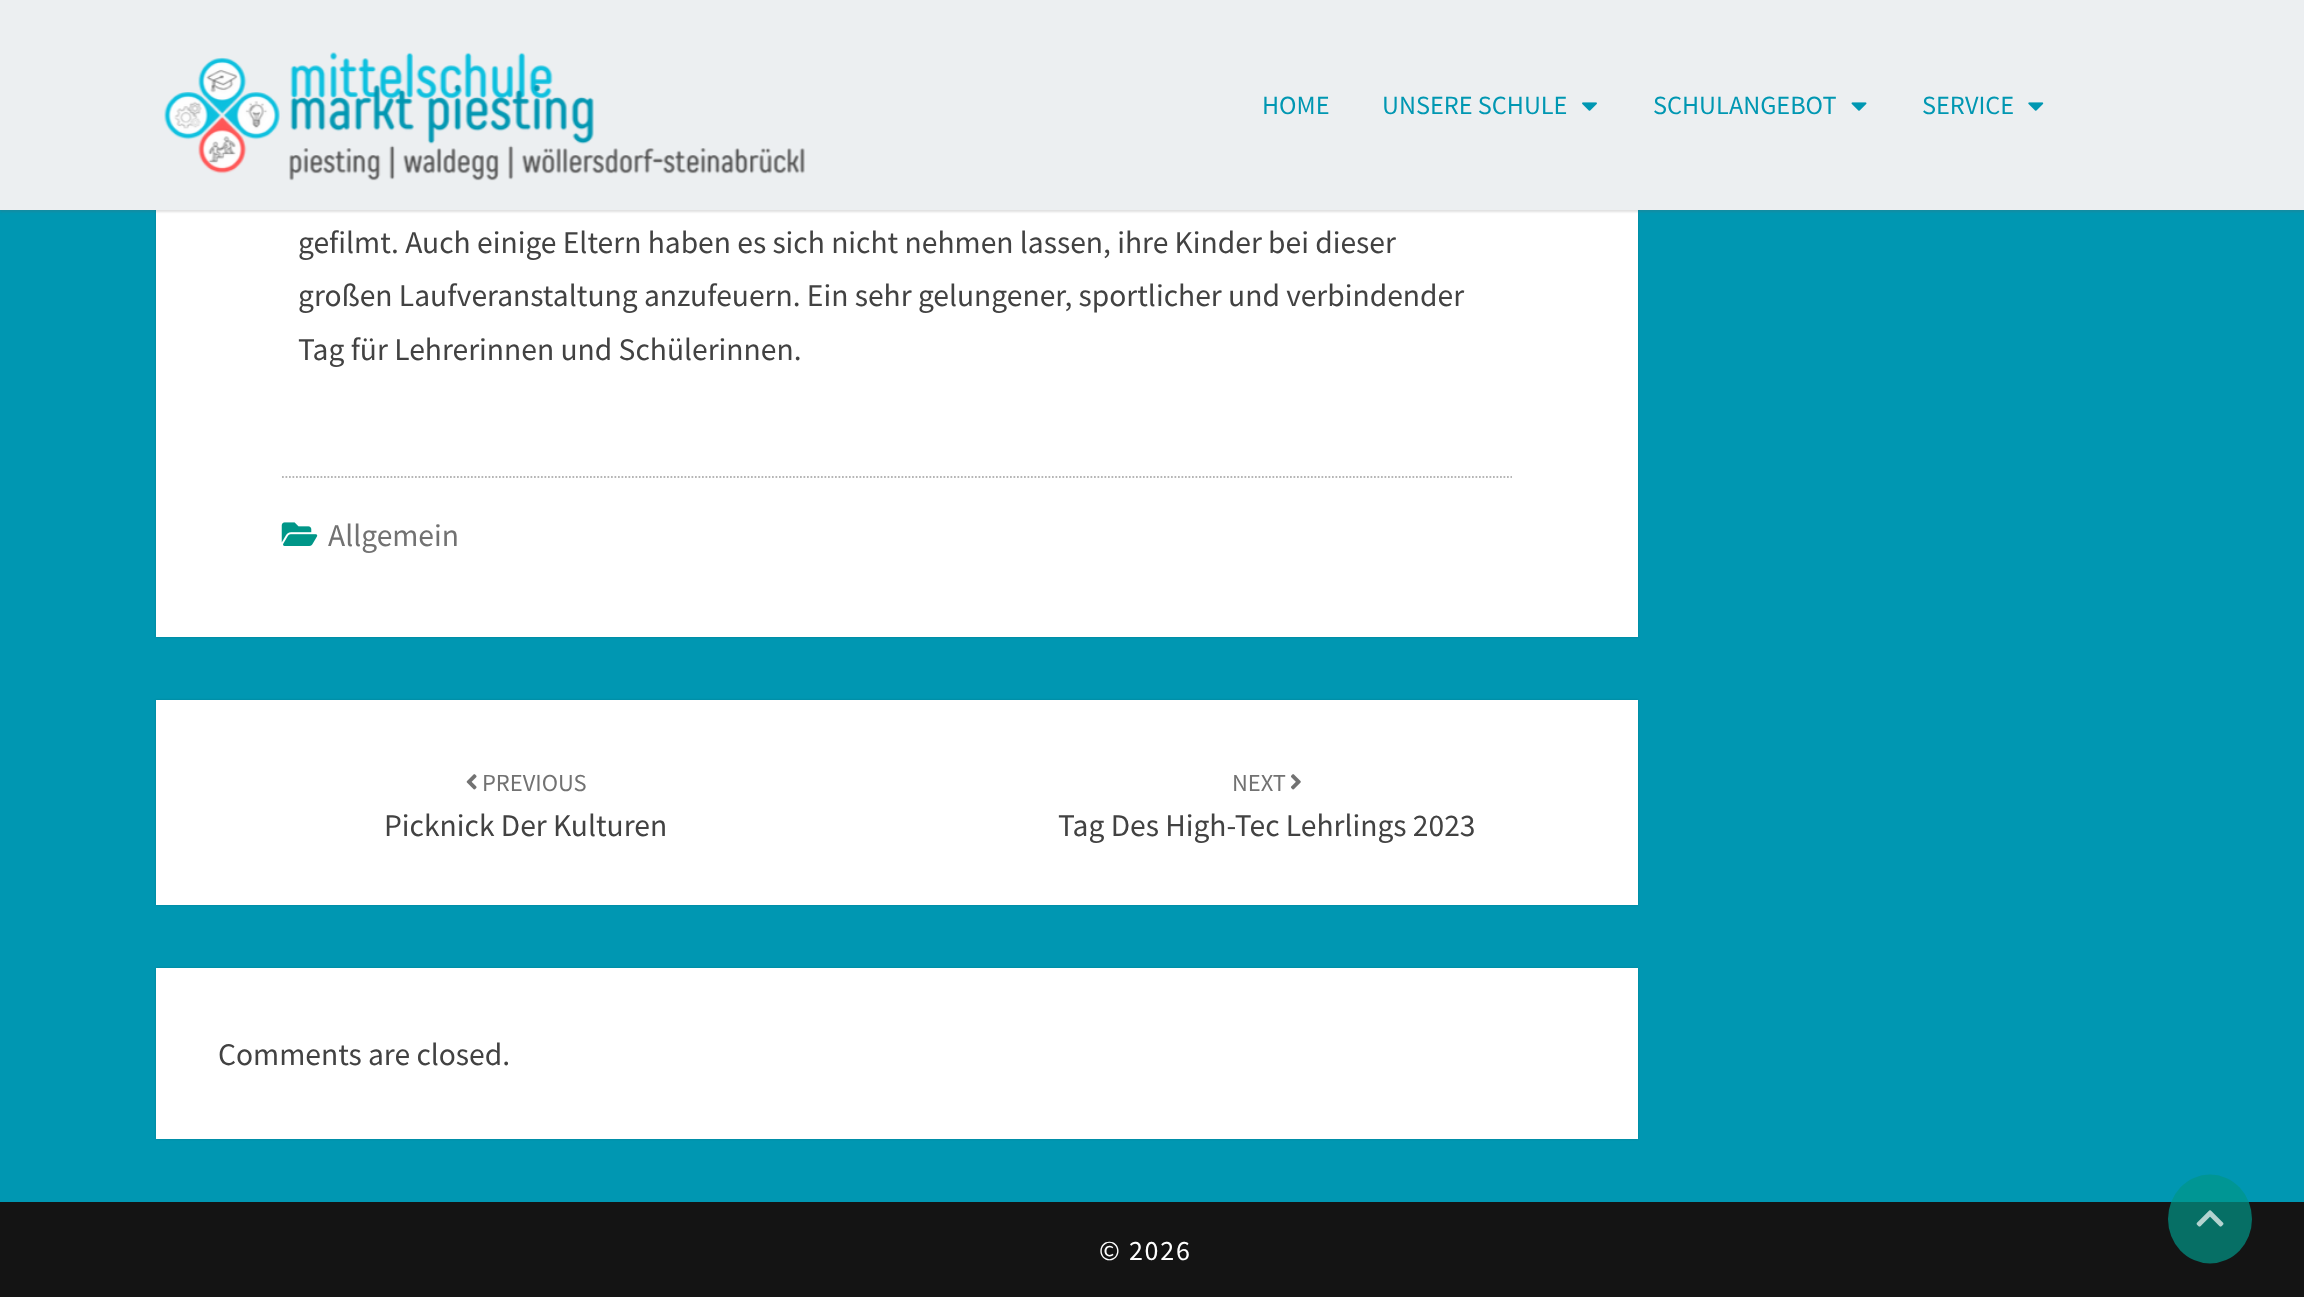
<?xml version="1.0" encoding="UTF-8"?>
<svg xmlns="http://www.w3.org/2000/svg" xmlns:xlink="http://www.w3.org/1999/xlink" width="2304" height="1297">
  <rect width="100%" height="100%" fill="#0097b2" />
  <rect x="156" y="-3" width="1482" height="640" fill="#000000" fill-opacity="0.15" filter="blur(1px)" />
  <rect x="156" y="210" width="1482" height="427" fill="#ffffff" />
  <rect y="2" width="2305" height="210" fill="#646464" fill-opacity="0.2" filter="blur(1px)" />
  <rect width="2304" height="210" fill="#eceff1" />
  <image x="164" y="52" width="641" height="129" xlink:href="image1.png" />
  <image x="1582" y="102" width="15" height="9" xlink:href="image2.png" />
  <image x="1851" y="102" width="16" height="9" xlink:href="image3.png" />
  <image x="2028" y="102" width="16" height="9" xlink:href="image4.png" />
  <path d="M 282 477 h 1230" fill="none" stroke="#b6b6b6" stroke-width="1.8" stroke-dasharray="1.75 1.75" />
  <image x="281" y="522" width="37" height="24" xlink:href="image5.png" />
  <rect x="156" y="700" width="1482" height="205" fill="#000000" fill-opacity="0.15" filter="blur(1px)" />
  <rect x="156" y="700" width="1482" height="205" fill="#ffffff" />
  <image x="466" y="774" width="11" height="16" xlink:href="image6.png" />
  <image x="1291" y="774" width="10" height="16" xlink:href="image7.png" />
  <rect x="156" y="968" width="1482" height="171" fill="#000000" fill-opacity="0.15" filter="blur(1px)" />
  <rect x="156" y="968" width="1482" height="171" fill="#ffffff" />
  <rect y="1202" width="2304" height="95" fill="#141414" />
  <ellipse cx="2210" cy="1219" rx="42" ry="44.5" fill="#009688" fill-opacity="0.7" />
  <image x="2196" y="1210" width="28" height="17" xlink:href="image8.png" />
  <text x="1262" y="114" style="font-family: Source Sans Pro; font-size: 26.25px; fill: #0097b2">HOME</text>
  <text x="1382" y="114" style="font-family: Source Sans Pro; font-size: 26.25px; fill: #0097b2">UNSERE SCHULE</text>
  <text x="1653" y="114" style="font-family: Source Sans Pro; font-size: 26.25px; fill: #0097b2">SCHULANGEBOT</text>
  <text x="1922" y="114" style="font-family: Source Sans Pro; font-size: 26.25px; fill: #0097b2">SERVICE</text>
  <text x="298" y="253" style="font-family: Source Sans Pro; font-size: 31.5px; fill: #424242">gefilmt. Auch einige Eltern haben es sich nicht nehmen lassen, ihre Kinder bei dieser</text>
  <text x="298" y="306" style="font-family: Source Sans Pro; font-size: 31.5px; fill: #424242">großen Laufveranstaltung anzufeuern. Ein sehr gelungener, sportlicher und verbindender</text>
  <text x="298" y="360" style="font-family: Source Sans Pro; font-size: 31.5px; fill: #424242">Tag für Lehrerinnen und Schülerinnen.</text>
  <text x="328" y="546" style="font-family: Source Sans Pro; font-size: 31.5px; fill: #727272">Allgemein</text>
  <text x="482" y="791" style="font-family: Source Sans Pro; font-size: 24.5px; fill: #727272">PREVIOUS</text>
  <text x="384" y="836" style="font-family: Source Sans Pro; font-size: 31.5px; fill: #424242">Picknick Der Kulturen</text>
  <text x="1232" y="791" style="font-family: Source Sans Pro; font-size: 24.5px; fill: #727272">NEXT</text>
  <text x="1058" y="836" style="font-family: Source Sans Pro; font-size: 31.5px; fill: #424242">Tag Des High-Tec Lehrlings 2023</text>
  <text x="218" y="1065" style="font-family: Source Sans Pro; font-size: 31.5px; fill: #424242">Comments are closed.</text>
  <text x="1099" y="1260" style="font-family: Source Sans Pro; font-size: 28px; letter-spacing: 1.75px; fill: #ffffff">© 2026</text>
</svg>
